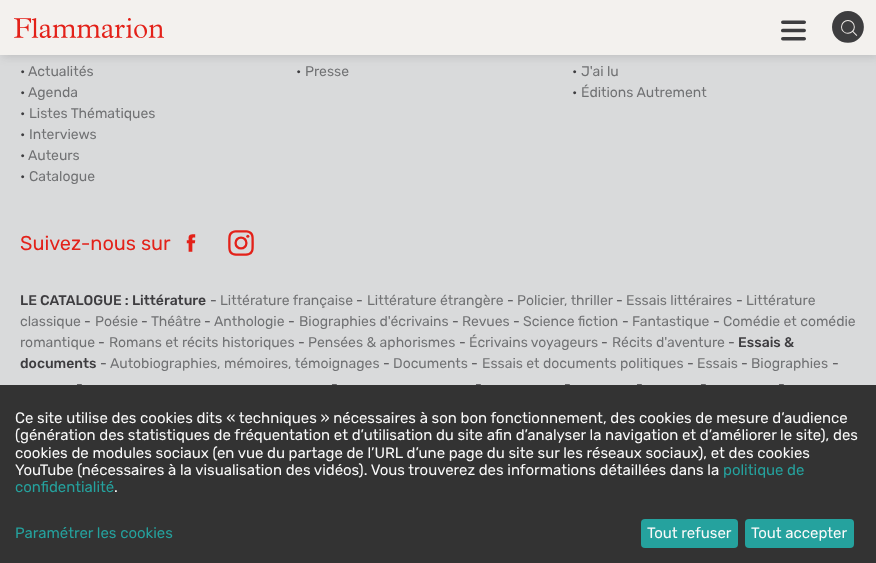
<?xml version="1.0" encoding="UTF-8"?>
<svg xmlns="http://www.w3.org/2000/svg" xmlns:xlink="http://www.w3.org/1999/xlink" width="876" height="563">
  <rect width="100%" height="100%" fill="#d9dadb" />
  <rect x="2" y="2" width="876" height="55" fill="#3e3d40" fill-opacity="0.16" filter="blur(4px)" />
  <rect width="876" height="55" fill="#f3f1ee" />
  <image x="14" y="18" width="150" height="20" xlink:href="image1.png" />
  <image x="781" y="20" width="25" height="21" xlink:href="image2.png" />
  <image x="832" y="11" width="32" height="32" xlink:href="image3.png" />
  <image x="186" y="234" width="10" height="18" xlink:href="image4.png" />
  <image x="228" y="230" width="26" height="26" xlink:href="image5.png" />
  <text x="20" y="76" style="font-family: Rubik; font-size: 14px; fill: #3e3d40">•</text>
  <text x="28" y="76" style="font-family: Rubik; font-size: 14px; fill: #707173">Actualités</text>
  <text x="20" y="97" style="font-family: Rubik; font-size: 14px; fill: #3e3d40">•</text>
  <text x="28" y="97" style="font-family: Rubik; font-size: 14px; fill: #707173">Agenda</text>
  <text x="20" y="118" style="font-family: Rubik; font-size: 14px; fill: #3e3d40">•</text>
  <text x="29" y="118" style="font-family: Rubik; font-size: 14px; fill: #707173">Listes Thématiques</text>
  <text x="20" y="139" style="font-family: Rubik; font-size: 14px; fill: #3e3d40">•</text>
  <text x="29" y="139" style="font-family: Rubik; font-size: 14px; fill: #707173">Interviews</text>
  <text x="20" y="160" style="font-family: Rubik; font-size: 14px; fill: #3e3d40">•</text>
  <text x="28" y="160" style="font-family: Rubik; font-size: 14px; fill: #707173">Auteurs</text>
  <text x="20" y="181" style="font-family: Rubik; font-size: 14px; fill: #3e3d40">•</text>
  <text x="29" y="181" style="font-family: Rubik; font-size: 14px; fill: #707173">Catalogue</text>
  <text x="296" y="76" style="font-family: Rubik; font-size: 14px; fill: #3e3d40">•</text>
  <text x="305" y="76" style="font-family: Rubik; font-size: 14px; fill: #707173">Presse</text>
  <text x="572" y="76" style="font-family: Rubik; font-size: 14px; fill: #3e3d40">•</text>
  <text x="581" y="76" style="font-family: Rubik; font-size: 14px; fill: #707173">J'ai lu</text>
  <text x="572" y="97" style="font-family: Rubik; font-size: 14px; fill: #3e3d40">•</text>
  <text x="581" y="97" style="font-family: Rubik; font-size: 14px; fill: #707173">Éditions Autrement</text>
  <text x="20" y="250" style="font-family: Rubik; font-size: 20px; fill: #e32119">Suivez-nous sur</text>
  <text x="20" y="305" style="font-family: Rubik; font-size: 14px; font-weight: 500; fill: #3e3d40">LE CATALOGUE : Littérature</text>
  <text x="210" y="305" style="font-family: Rubik; font-size: 14px; fill: #3e3d40">-</text>
  <text x="220" y="305" style="font-family: Rubik; font-size: 14px; fill: #707173">Littérature française</text>
  <text x="356" y="305" style="font-family: Rubik; font-size: 14px; fill: #3e3d40">-</text>
  <text x="367" y="305" style="font-family: Rubik; font-size: 14px; fill: #707173">Littérature étrangère</text>
  <text x="507" y="305" style="font-family: Rubik; font-size: 14px; fill: #3e3d40">-</text>
  <text x="517" y="305" style="font-family: Rubik; font-size: 14px; fill: #707173">Policier, thriller</text>
  <text x="616" y="305" style="font-family: Rubik; font-size: 14px; fill: #3e3d40">-</text>
  <text x="626" y="305" style="font-family: Rubik; font-size: 14px; fill: #707173">Essais littéraires</text>
  <text x="736" y="305" style="font-family: Rubik; font-size: 14px; fill: #3e3d40">-</text>
  <text x="746" y="305" style="font-family: Rubik; font-size: 14px; fill: #707173">Littérature</text>
  <text x="20" y="326" style="font-family: Rubik; font-size: 14px; fill: #707173">classique</text>
  <text x="84" y="326" style="font-family: Rubik; font-size: 14px; fill: #3e3d40">-</text>
  <text x="95" y="326" style="font-family: Rubik; font-size: 14px; fill: #707173">Poésie</text>
  <text x="141" y="326" style="font-family: Rubik; font-size: 14px; fill: #3e3d40">-</text>
  <text x="151" y="326" style="font-family: Rubik; font-size: 14px; fill: #707173">Théâtre</text>
  <text x="204" y="326" style="font-family: Rubik; font-size: 14px; fill: #3e3d40">-</text>
  <text x="214" y="326" style="font-family: Rubik; font-size: 14px; fill: #707173">Anthologie</text>
  <text x="288" y="326" style="font-family: Rubik; font-size: 14px; fill: #3e3d40">-</text>
  <text x="299" y="326" style="font-family: Rubik; font-size: 14px; fill: #707173">Biographies d'écrivains</text>
  <text x="452" y="326" style="font-family: Rubik; font-size: 14px; fill: #3e3d40">-</text>
  <text x="462" y="326" style="font-family: Rubik; font-size: 14px; fill: #707173">Revues</text>
  <text x="513" y="326" style="font-family: Rubik; font-size: 14px; fill: #3e3d40">-</text>
  <text x="523" y="326" style="font-family: Rubik; font-size: 14px; fill: #707173">Science fiction</text>
  <text x="622" y="326" style="font-family: Rubik; font-size: 14px; fill: #3e3d40">-</text>
  <text x="632" y="326" style="font-family: Rubik; font-size: 14px; fill: #707173">Fantastique</text>
  <text x="713" y="326" style="font-family: Rubik; font-size: 14px; fill: #3e3d40">-</text>
  <text x="723" y="326" style="font-family: Rubik; font-size: 14px; fill: #707173">Comédie et comédie</text>
  <text x="20" y="347" style="font-family: Rubik; font-size: 14px; fill: #707173">romantique</text>
  <text x="98" y="347" style="font-family: Rubik; font-size: 14px; fill: #3e3d40">-</text>
  <text x="109" y="347" style="font-family: Rubik; font-size: 14px; fill: #707173">Romans et récits historiques</text>
  <text x="298" y="347" style="font-family: Rubik; font-size: 14px; fill: #3e3d40">-</text>
  <text x="308" y="347" style="font-family: Rubik; font-size: 14px; fill: #707173">Pensées &amp; aphorismes</text>
  <text x="459" y="347" style="font-family: Rubik; font-size: 14px; fill: #3e3d40">-</text>
  <text x="469" y="347" style="font-family: Rubik; font-size: 14px; fill: #707173">Écrivains voyageurs</text>
  <text x="601" y="347" style="font-family: Rubik; font-size: 14px; fill: #3e3d40">-</text>
  <text x="612" y="347" style="font-family: Rubik; font-size: 14px; fill: #707173">Récits d'aventure</text>
  <text x="728" y="347" style="font-family: Rubik; font-size: 14px; fill: #3e3d40">-</text>
  <text x="738" y="347" style="font-family: Rubik; font-size: 14px; font-weight: 500; fill: #3e3d40">Essais &amp;</text>
  <text x="20" y="368" style="font-family: Rubik; font-size: 14px; font-weight: 500; fill: #3e3d40">documents</text>
  <text x="100" y="368" style="font-family: Rubik; font-size: 14px; fill: #3e3d40">-</text>
  <text x="110" y="368" style="font-family: Rubik; font-size: 14px; fill: #707173">Autobiographies, mémoires, témoignages</text>
  <text x="383" y="368" style="font-family: Rubik; font-size: 14px; fill: #3e3d40">-</text>
  <text x="393" y="368" style="font-family: Rubik; font-size: 14px; fill: #707173">Documents</text>
  <text x="471" y="368" style="font-family: Rubik; font-size: 14px; fill: #3e3d40">-</text>
  <text x="482" y="368" style="font-family: Rubik; font-size: 14px; fill: #707173">Essais et documents politiques</text>
  <text x="687" y="368" style="font-family: Rubik; font-size: 14px; fill: #3e3d40">-</text>
  <text x="697" y="368" style="font-family: Rubik; font-size: 14px; fill: #707173">Essais</text>
  <text x="741" y="368" style="font-family: Rubik; font-size: 14px; fill: #3e3d40">-</text>
  <text x="751" y="368" style="font-family: Rubik; font-size: 14px; fill: #707173">Biographies</text>
  <text x="832" y="368" style="font-family: Rubik; font-size: 14px; fill: #3e3d40">-</text>
  <text x="76" y="389" style="font-family: Rubik; font-size: 14px; fill: #3e3d40">-</text>
  <text x="331" y="389" style="font-family: Rubik; font-size: 14px; fill: #3e3d40">-</text>
  <text x="475" y="389" style="font-family: Rubik; font-size: 14px; fill: #3e3d40">-</text>
  <text x="564" y="389" style="font-family: Rubik; font-size: 14px; fill: #3e3d40">-</text>
  <text x="636" y="389" style="font-family: Rubik; font-size: 14px; fill: #3e3d40">-</text>
  <text x="700" y="389" style="font-family: Rubik; font-size: 14px; fill: #3e3d40">-</text>
  <text x="778" y="389" style="font-family: Rubik; font-size: 14px; fill: #3e3d40">-</text>
  <rect y="385" width="876" height="178" fill="#333333" />
  <text x="15" y="423" style="font-family: Rubik; font-size: 15px; fill: #fafafa">Ce site utilise des cookies dits « techniques » nécessaires à son bon fonctionnement, des cookies de mesure d’audience</text>
  <text x="15" y="440" style="font-family: Rubik; font-size: 15px; fill: #fafafa">(génération des statistiques de fréquentation et d’utilisation du site afin d’analyser la navigation et d’améliorer le site), des</text>
  <text x="15" y="458" style="font-family: Rubik; font-size: 15px; fill: #fafafa">cookies de modules sociaux (en vue du partage de l’URL d’une page du site sur les réseaux sociaux), et des cookies</text>
  <text x="15" y="475" style="font-family: Rubik; font-size: 15px; fill: #fafafa">YouTube (nécessaires à la visualisation des vidéos). Vous trouverez des informations détaillées dans la</text>
  <text x="723" y="475" style="font-family: Rubik; font-size: 15px; fill: #25a29e">politique de</text>
  <text x="15" y="492" style="font-family: Rubik; font-size: 15px; fill: #25a29e">confidentialité</text>
  <text x="114" y="492" style="font-family: Rubik; font-size: 15px; fill: #fafafa">.</text>
  <text x="15" y="538" style="font-family: Rubik; font-size: 15px; fill: #25a29e">Paramétrer les cookies</text>
  <rect x="641" y="519" width="97" height="29" rx="4" fill="#25a29e" />
  <text x="647" y="538" style="font-family: Rubik; font-size: 15px; fill: #fafafa">Tout refuser</text>
  <rect x="745" y="519" width="109" height="29" rx="4" fill="#25a29e" />
  <text x="751" y="538" style="font-family: Rubik; font-size: 15px; fill: #fafafa">Tout accepter</text>
</svg>
